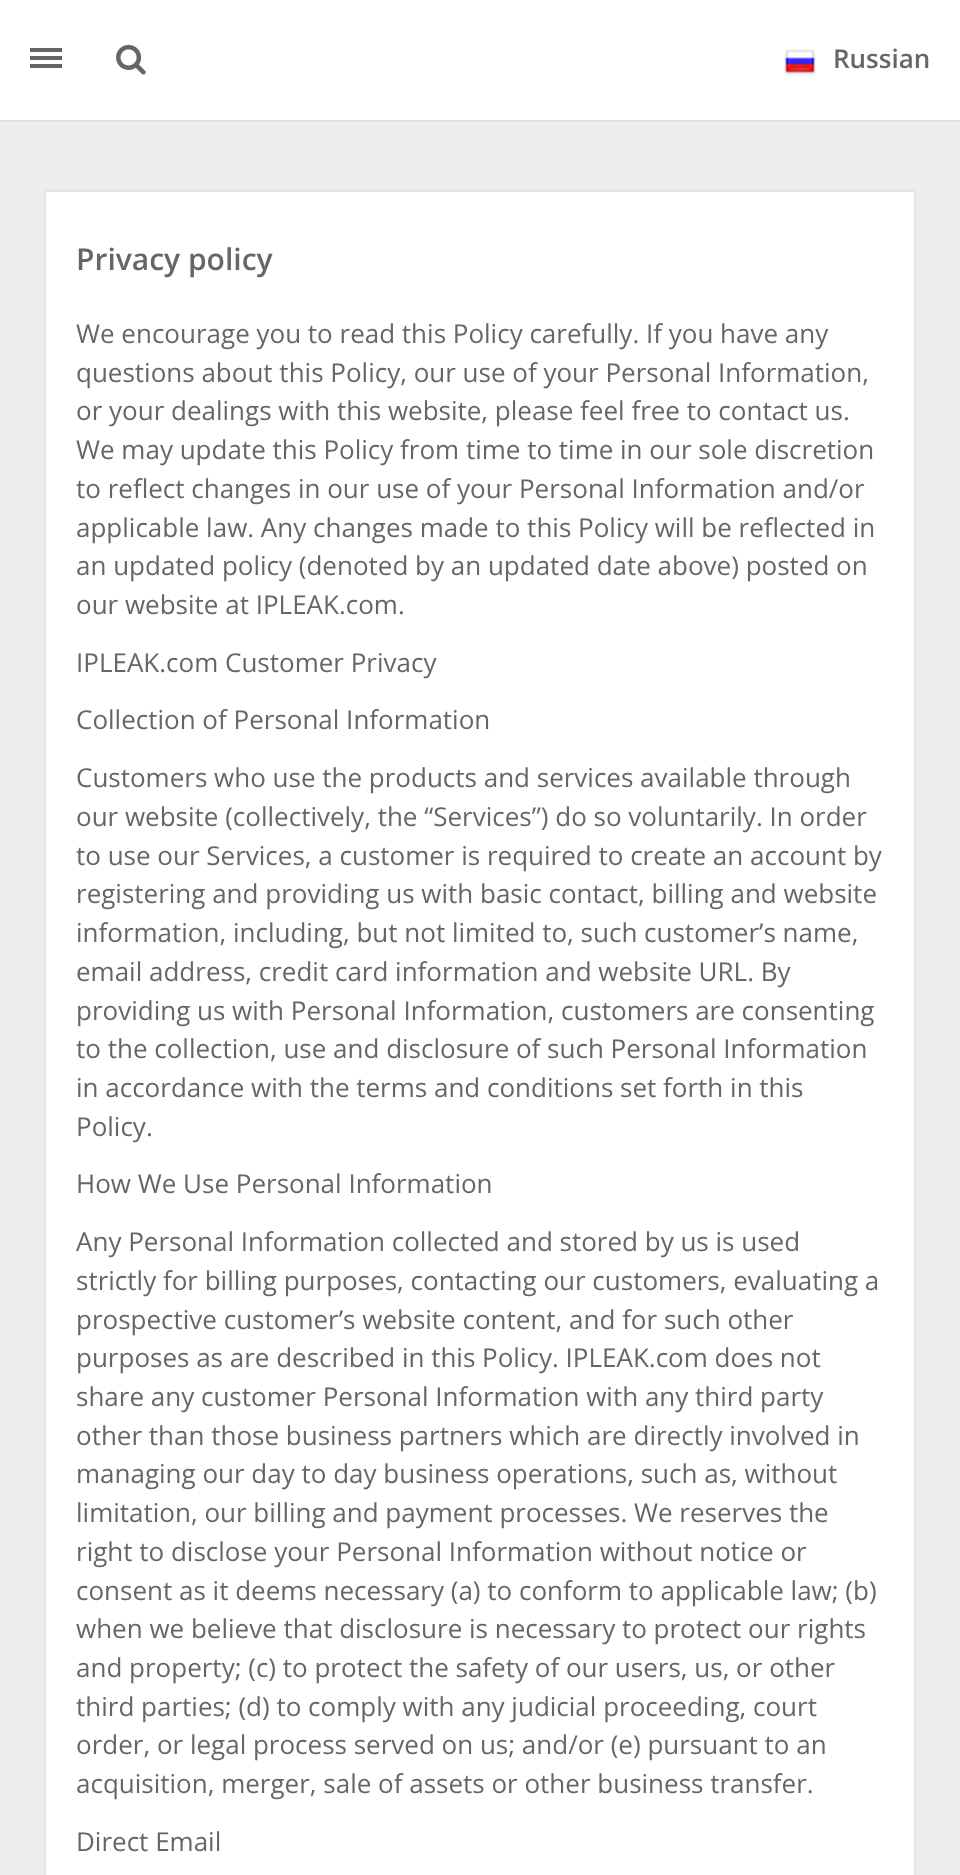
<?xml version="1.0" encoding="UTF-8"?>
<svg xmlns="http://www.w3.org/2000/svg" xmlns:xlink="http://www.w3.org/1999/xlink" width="960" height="1875">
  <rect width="100%" height="100%" fill="#eeeeee" />
  <rect y="120" width="960" height="2" fill="#e0e0e0" />
  <rect width="960" height="120" fill="#ffffff" />
  <image x="30" y="48" width="32" height="20" xlink:href="image1.png" />
  <image x="116" y="44" width="30" height="31" xlink:href="image2.png" />
  <image x="784" y="49" width="32" height="27" xlink:href="image3.png" />
  <rect x="45" y="191" width="870" height="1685" fill="#ffffff" stroke="#e5e5e5" stroke-width="2" />
  <text x="833" y="68" style="font-family: Open Sans; font-size: 26px; font-weight: 600; fill: #666666">Russian</text>
  <text x="76" y="270" style="font-family: Open Sans; font-size: 30px; font-weight: 600; fill: #666666">Privacy policy</text>
  <text x="76" y="343" style="font-family: Open Sans; font-size: 26px; fill: #666666">We encourage you to read this Policy carefully. If you have any</text>
  <text x="76" y="382" style="font-family: Open Sans; font-size: 26px; fill: #666666">questions about this Policy, our use of your Personal Information,</text>
  <text x="76" y="420" style="font-family: Open Sans; font-size: 26px; fill: #666666">or your dealings with this website, please feel free to contact us.</text>
  <text x="76" y="459" style="font-family: Open Sans; font-size: 26px; fill: #666666">We may update this Policy from time to time in our sole discretion</text>
  <text x="76" y="498" style="font-family: Open Sans; font-size: 26px; fill: #666666">to reflect changes in our use of your Personal Information and/or</text>
  <text x="76" y="537" style="font-family: Open Sans; font-size: 26px; fill: #666666">applicable law. Any changes made to this Policy will be reflected in</text>
  <text x="76" y="575" style="font-family: Open Sans; font-size: 26px; fill: #666666">an updated policy (denoted by an updated date above) posted on</text>
  <text x="76" y="614" style="font-family: Open Sans; font-size: 26px; fill: #666666">our website at IPLEAK.com.</text>
  <text x="76" y="672" style="font-family: Open Sans; font-size: 26px; fill: #666666">IPLEAK.com Customer Privacy</text>
  <text x="76" y="729" style="font-family: Open Sans; font-size: 26px; fill: #666666">Collection of Personal Information</text>
  <text x="76" y="787" style="font-family: Open Sans; font-size: 26px; fill: #666666">Customers who use the products and services available through</text>
  <text x="76" y="826" style="font-family: Open Sans; font-size: 26px; fill: #666666">our website (collectively, the “Services”) do so voluntarily. In order</text>
  <text x="76" y="865" style="font-family: Open Sans; font-size: 26px; fill: #666666">to use our Services, a customer is required to create an account by</text>
  <text x="76" y="903" style="font-family: Open Sans; font-size: 26px; fill: #666666">registering and providing us with basic contact, billing and website</text>
  <text x="76" y="942" style="font-family: Open Sans; font-size: 26px; fill: #666666">information, including, but not limited to, such customer’s name,</text>
  <text x="76" y="981" style="font-family: Open Sans; font-size: 26px; fill: #666666">email address, credit card information and website URL. By</text>
  <text x="76" y="1020" style="font-family: Open Sans; font-size: 26px; fill: #666666">providing us with Personal Information, customers are consenting</text>
  <text x="76" y="1058" style="font-family: Open Sans; font-size: 26px; fill: #666666">to the collection, use and disclosure of such Personal Information</text>
  <text x="76" y="1097" style="font-family: Open Sans; font-size: 26px; fill: #666666">in accordance with the terms and conditions set forth in this</text>
  <text x="76" y="1136" style="font-family: Open Sans; font-size: 26px; fill: #666666">Policy.</text>
  <text x="76" y="1193" style="font-family: Open Sans; font-size: 26px; fill: #666666">How We Use Personal Information</text>
  <text x="76" y="1251" style="font-family: Open Sans; font-size: 26px; fill: #666666">Any Personal Information collected and stored by us is used</text>
  <text x="76" y="1290" style="font-family: Open Sans; font-size: 26px; fill: #666666">strictly for billing purposes, contacting our customers, evaluating a</text>
  <text x="76" y="1329" style="font-family: Open Sans; font-size: 26px; fill: #666666">prospective customer’s website content, and for such other</text>
  <text x="76" y="1367" style="font-family: Open Sans; font-size: 26px; fill: #666666">purposes as are described in this Policy. IPLEAK.com does not</text>
  <text x="76" y="1406" style="font-family: Open Sans; font-size: 26px; fill: #666666">share any customer Personal Information with any third party</text>
  <text x="76" y="1445" style="font-family: Open Sans; font-size: 26px; fill: #666666">other than those business partners which are directly involved in</text>
  <text x="76" y="1483" style="font-family: Open Sans; font-size: 26px; fill: #666666">managing our day to day business operations, such as, without</text>
  <text x="76" y="1522" style="font-family: Open Sans; font-size: 26px; fill: #666666">limitation, our billing and payment processes. We reserves the</text>
  <text x="76" y="1561" style="font-family: Open Sans; font-size: 26px; fill: #666666">right to disclose your Personal Information without notice or</text>
  <text x="76" y="1600" style="font-family: Open Sans; font-size: 26px; fill: #666666">consent as it deems necessary (a) to conform to applicable law; (b)</text>
  <text x="76" y="1638" style="font-family: Open Sans; font-size: 26px; fill: #666666">when we believe that disclosure is necessary to protect our rights</text>
  <text x="76" y="1677" style="font-family: Open Sans; font-size: 26px; fill: #666666">and property; (c) to protect the safety of our users, us, or other</text>
  <text x="76" y="1716" style="font-family: Open Sans; font-size: 26px; fill: #666666">third parties; (d) to comply with any judicial proceeding, court</text>
  <text x="76" y="1754" style="font-family: Open Sans; font-size: 26px; fill: #666666">order, or legal process served on us; and/or (e) pursuant to an</text>
  <text x="76" y="1793" style="font-family: Open Sans; font-size: 26px; fill: #666666">acquisition, merger, sale of assets or other business transfer.</text>
  <text x="76" y="1851" style="font-family: Open Sans; font-size: 26px; fill: #666666">Direct Email</text>
</svg>
